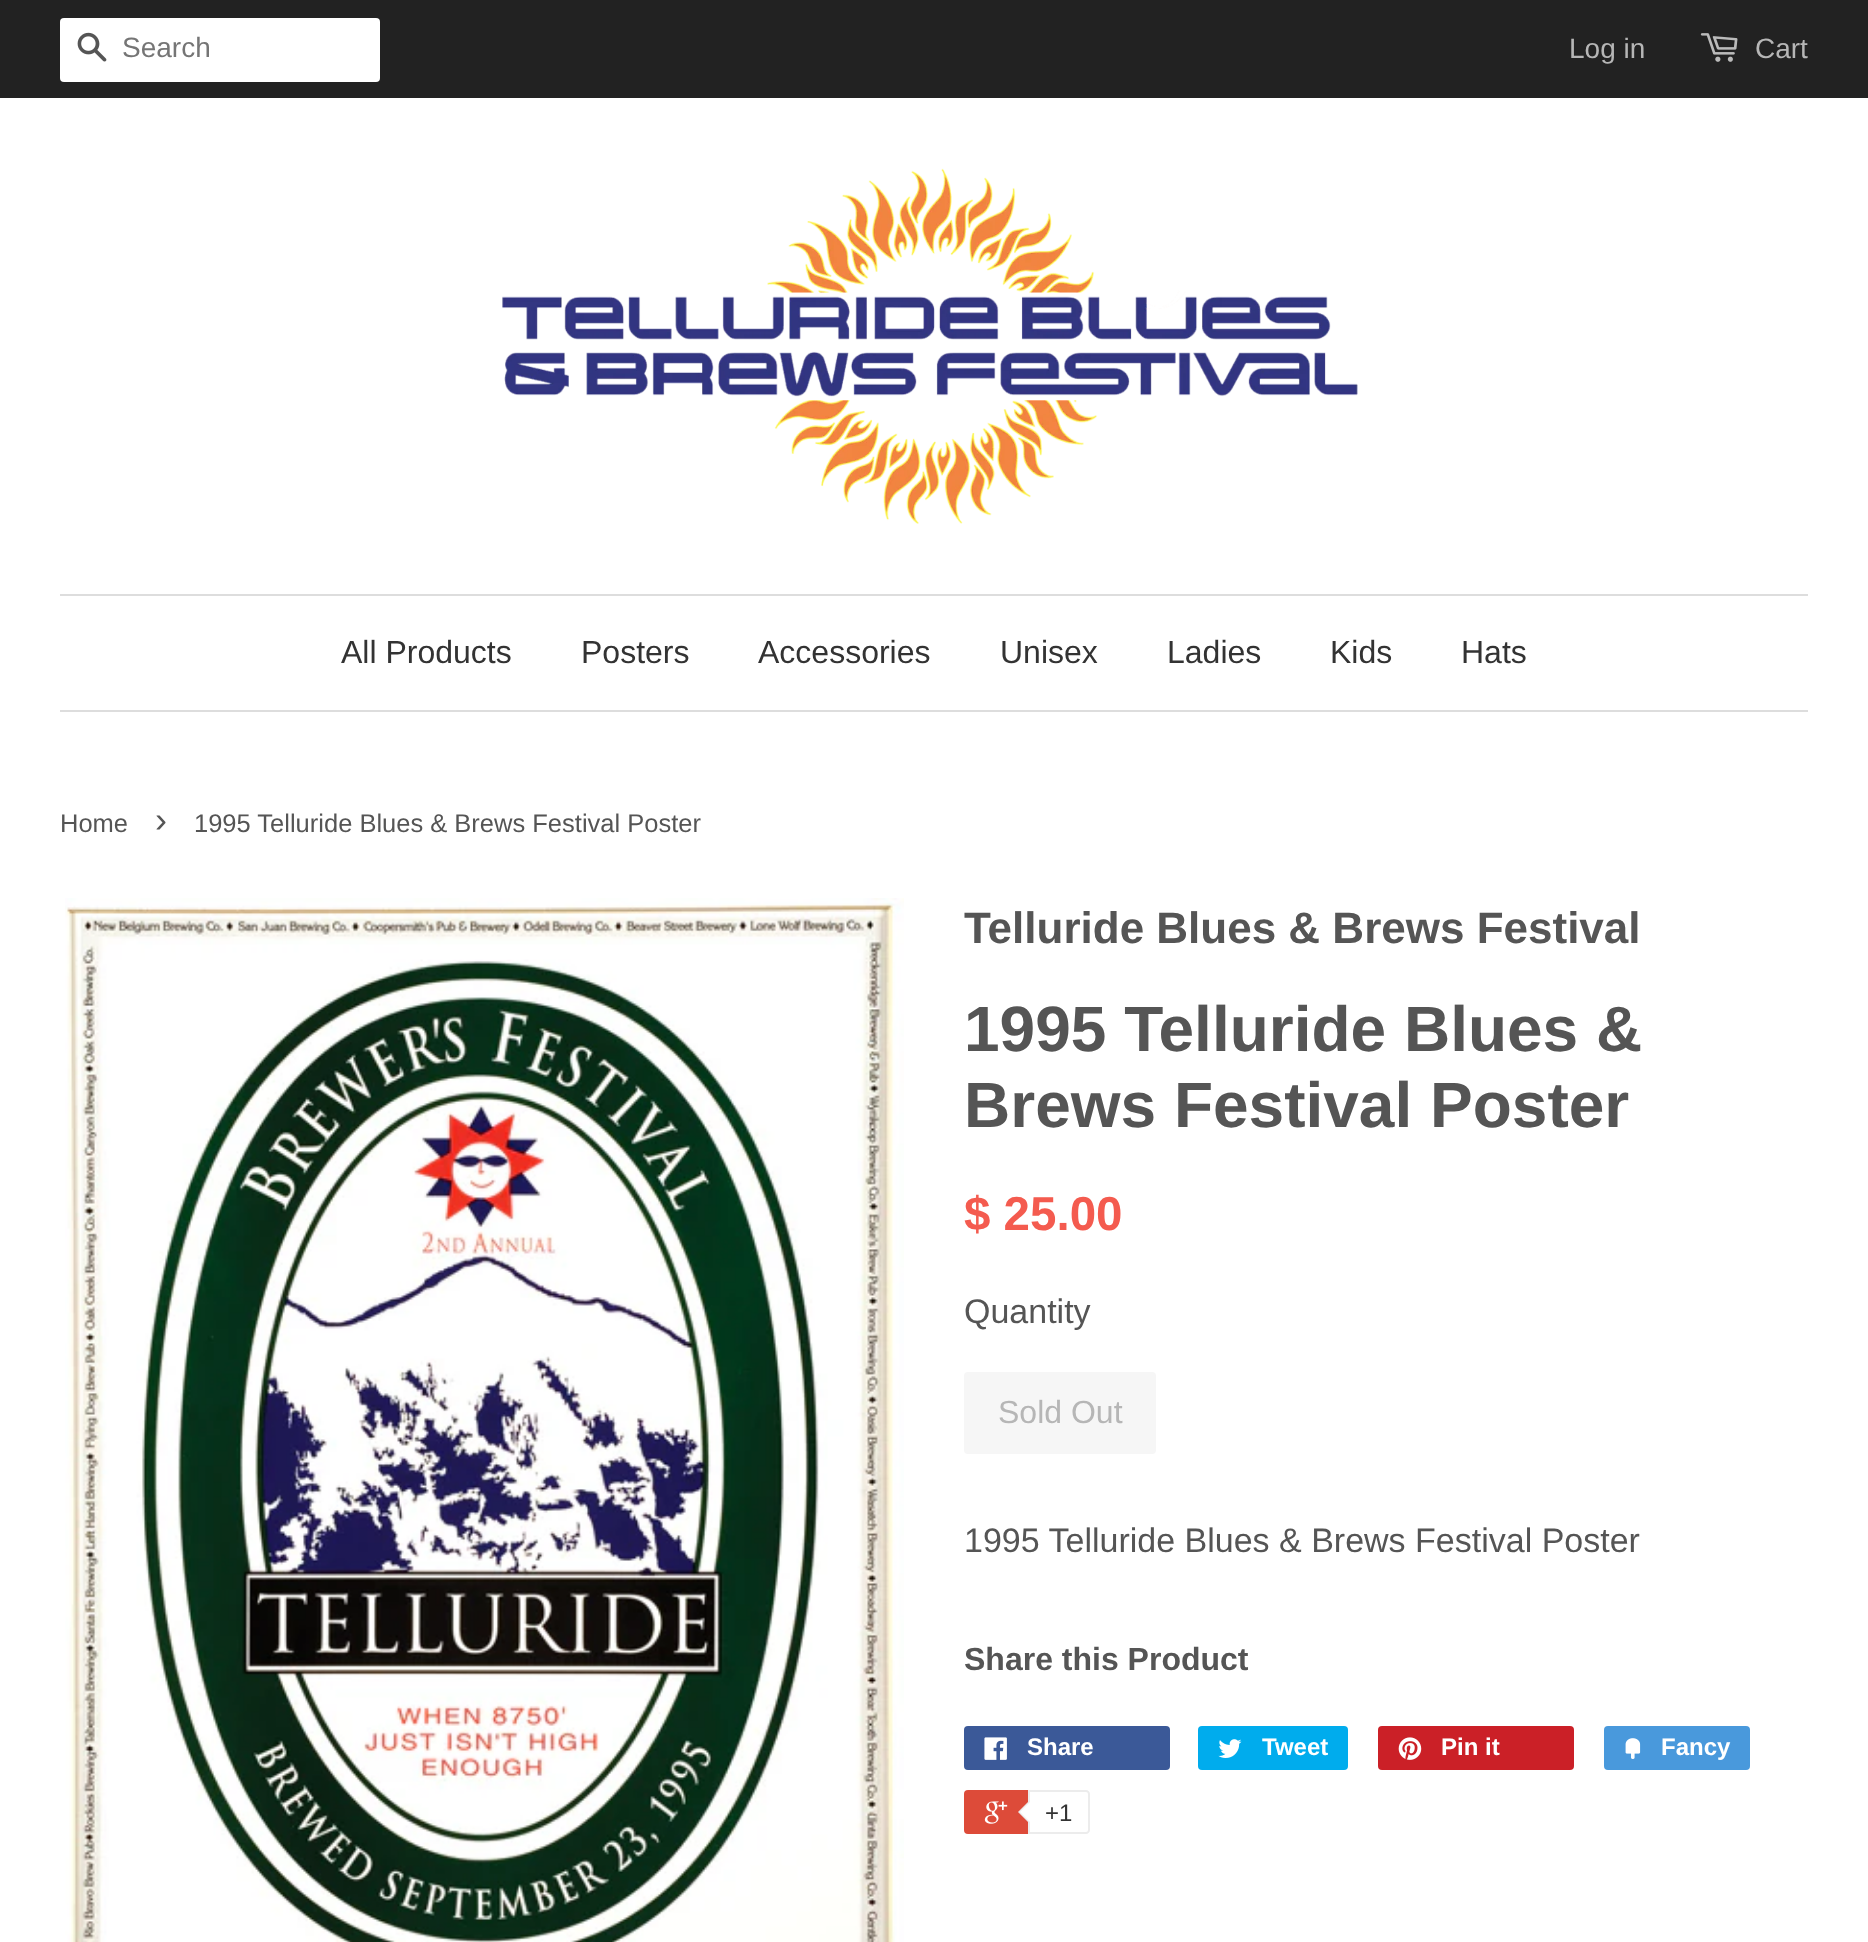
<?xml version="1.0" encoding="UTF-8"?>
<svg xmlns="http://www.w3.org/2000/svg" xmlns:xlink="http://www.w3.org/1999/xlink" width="1868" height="1942">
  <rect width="100%" height="100%" fill="#ffffff" />
  <rect width="1868" height="98" fill="#222222" />
  <rect x="60" y="18" width="320" height="64" rx="4" fill="#ffffff" />
  <image x="77" y="32" width="30" height="30" xlink:href="image1.png" />
  <image x="1700" y="33" width="38" height="29" xlink:href="image2.png" />
  <image x="502" y="168" width="856" height="356" xlink:href="image3.png" />
  <rect x="60" y="594" width="1748" height="2" fill="#dddddd" />
  <rect x="60" y="710" width="1748" height="2" fill="#dddddd" />
  <image x="65" y="898" width="839" height="1044" xlink:href="image4.png" />
  <rect x="964" y="1372" width="192" height="82" rx="4" fill="#f6f6f6" />
  <rect x="964" y="1726" width="206" height="44" rx="4" fill="#3b5998" />
  <image x="984" y="1737" width="23" height="23" xlink:href="image5.png" />
  <rect x="1198" y="1726" width="150" height="44" rx="4" fill="#00aced" />
  <image x="1218" y="1739" width="24" height="19" xlink:href="image6.png" />
  <rect x="1378" y="1726" width="196" height="44" rx="4" fill="#cb2027" />
  <image x="1398" y="1737" width="24" height="23" xlink:href="image7.png" />
  <rect x="1604" y="1726" width="146" height="44" rx="4" fill="#4999dc" />
  <image x="1625" y="1738" width="16" height="21" xlink:href="image8.png" />
  <rect x="964" y="1790" width="122" height="44" rx="4" fill="#dd4b39" />
  <image x="984" y="1801" width="24" height="23" xlink:href="image9.png" />
  <path d="M 1029 1791 h 57 c 1.5 0 3 1.5 3 3 v 36 c 0 1.5 -1.5 3 -3 3 h -57 z" fill="#ffffff" stroke="#ececec" stroke-width="2" />
  <path d="M 1030 1800 v 24 l -12 -12 z" fill="#ececec" />
  <path d="M 1032 1800 v 24 l -12 -12 z" fill="#ffffff" />
  <text x="122" y="57" style="font-family: Liberation Sans; font-size: 28px; fill: #757575">Search</text>
  <text x="1569" y="58" style="font-family: Liberation Sans; font-size: 28px; fill: #b6b6b6">Log in</text>
  <text x="1755" y="58" style="font-family: Liberation Sans; font-size: 28px; fill: #b6b6b6">Cart</text>
  <text x="341" y="663" style="font-family: Liberation Sans; font-size: 32px; fill: #333333">All Products</text>
  <text x="581" y="663" style="font-family: Liberation Sans; font-size: 32px; fill: #333333">Posters</text>
  <text x="758" y="663" style="font-family: Liberation Sans; font-size: 32px; fill: #333333">Accessories</text>
  <text x="1000" y="663" style="font-family: Liberation Sans; font-size: 32px; fill: #333333">Unisex</text>
  <text x="1167" y="663" style="font-family: Liberation Sans; font-size: 32px; fill: #333333">Ladies</text>
  <text x="1330" y="663" style="font-family: Liberation Sans; font-size: 32px; fill: #333333">Kids</text>
  <text x="1461" y="663" style="font-family: Liberation Sans; font-size: 32px; fill: #333333">Hats</text>
  <text x="60" y="832" style="font-family: Liberation Sans; font-size: 25.5px; fill: #555555">Home</text>
  <text x="155" y="832" style="font-family: Liberation Sans; font-size: 36px; fill: #555555">›</text>
  <text x="194" y="832" style="font-family: Liberation Sans; font-size: 25.5px; fill: #555555">1995 Telluride Blues &amp; Brews Festival Poster</text>
  <text x="964" y="943" style="font-family: Liberation Sans; font-size: 44px; font-weight: bold; fill: #555555">Telluride Blues &amp; Brews Festival</text>
  <text x="964" y="1051" style="font-family: Liberation Sans; font-size: 64px; font-weight: bold; fill: #555555">1995 Telluride Blues &amp;</text>
  <text x="964" y="1127" style="font-family: Liberation Sans; font-size: 64px; font-weight: bold; fill: #555555">Brews Festival Poster</text>
  <text x="964" y="1230" style="font-family: Liberation Sans; font-size: 47.5px; font-weight: bold; fill: #f45b4f">$ 25.00</text>
  <text x="964" y="1323" style="font-family: Liberation Sans; font-size: 34px; fill: #555555">Quantity</text>
  <text x="998" y="1423" style="font-family: Liberation Sans; font-size: 32px; fill: #b6b6b6">Sold Out</text>
  <text x="964" y="1552" style="font-family: Liberation Sans; font-size: 34px; fill: #555555">1995 Telluride Blues &amp; Brews Festival Poster</text>
  <text x="964" y="1670" style="font-family: Liberation Sans; font-size: 32px; font-weight: bold; fill: #555555">Share this Product</text>
  <text x="1027" y="1755" style="font-family: Liberation Sans; font-size: 24px; font-weight: bold; fill: #ffffff">Share</text>
  <text x="1262" y="1755" style="font-family: Liberation Sans; font-size: 24px; font-weight: bold; fill: #ffffff">Tweet</text>
  <text x="1441" y="1755" style="font-family: Liberation Sans; font-size: 24px; font-weight: bold; fill: #ffffff">Pin it</text>
  <text x="1661" y="1755" style="font-family: Liberation Sans; font-size: 24px; font-weight: bold; fill: #ffffff">Fancy</text>
  <text x="1045" y="1821" style="font-family: Liberation Sans; font-size: 24px; fill: #333333">+1</text>
</svg>
